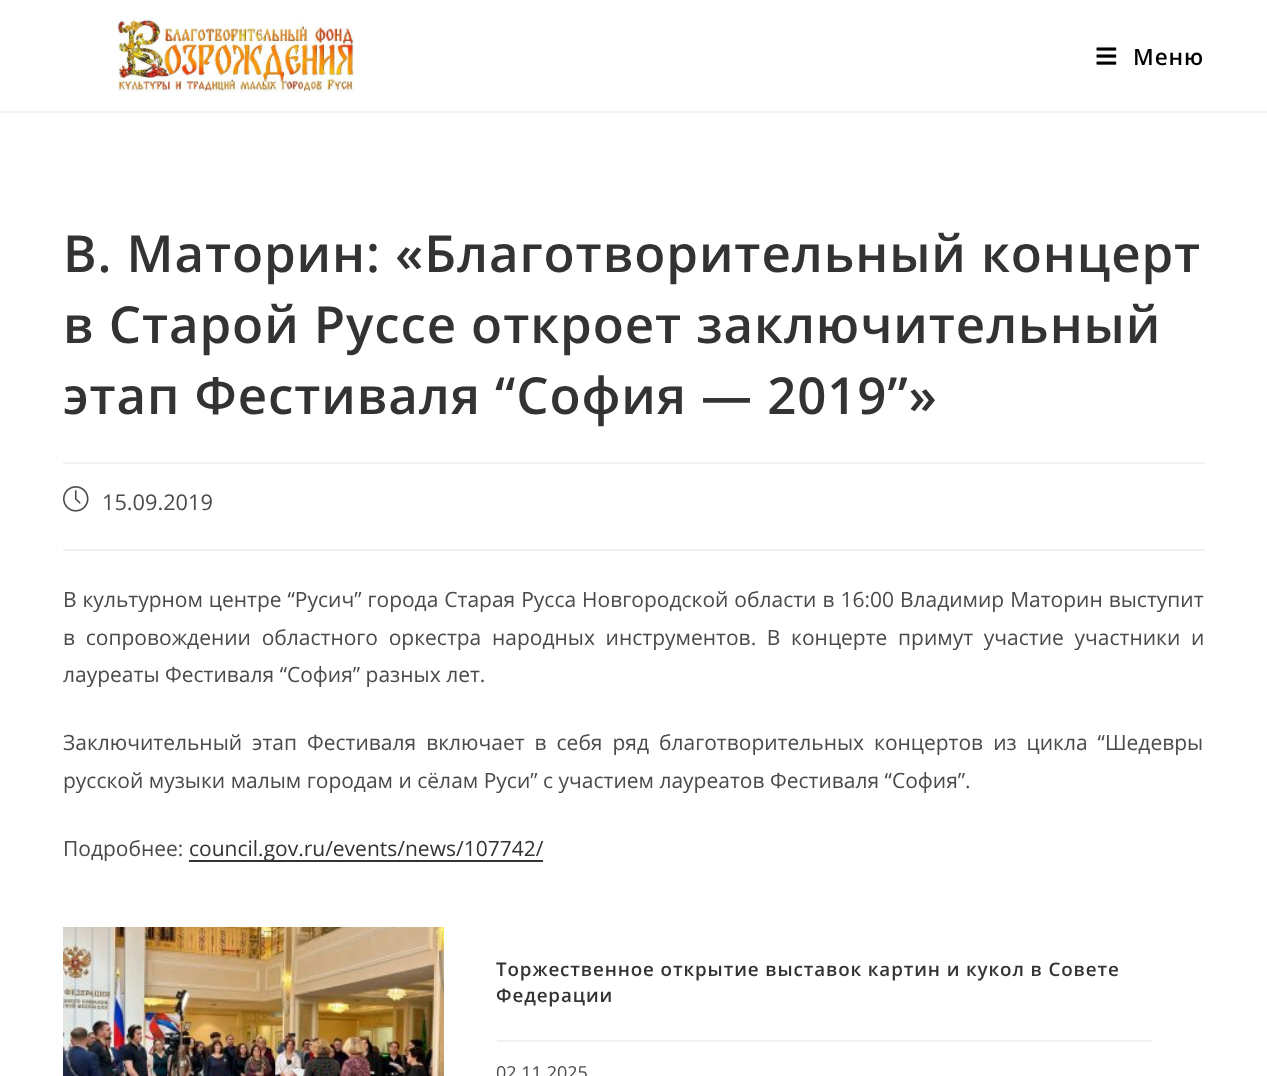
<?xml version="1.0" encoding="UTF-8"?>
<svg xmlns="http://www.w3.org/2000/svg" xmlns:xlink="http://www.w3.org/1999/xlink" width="1267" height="1076">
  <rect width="100%" height="100%" fill="#ffffff" />
  <rect y="111" width="1267" height="2" fill="#f1f1f1" />
  <image x="117" y="15" width="238" height="77" xlink:href="image1.png" />
  <image x="1096" y="47" width="21" height="18" xlink:href="image2.png" />
  <rect x="63" y="462" width="1142" height="2" fill="#f1f1f1" />
  <rect x="63" y="549" width="1142" height="2" fill="#f1f1f1" />
  <image x="63" y="486" width="26" height="26" xlink:href="image3.png" />
  <rect x="189" y="860" width="354" height="2" fill="#333333" />
  <image x="63" y="927" width="381" height="149" xlink:href="image4.png" />
  <rect x="497" y="1040" width="655" height="2" fill="#f1f1f1" />
  <text x="1133" y="65" style="font-family: Open Sans; font-size: 22.5px; font-weight: 600; letter-spacing: 0.9px; fill: #000000">Меню</text>
  <text x="63" y="272" style="font-family: Open Sans; font-size: 51px; font-weight: 600; letter-spacing: 0.9px; fill: #333333">В. Маторин: «Благотворительный концерт</text>
  <text x="63" y="343" style="font-family: Open Sans; font-size: 51px; font-weight: 600; letter-spacing: 0.9px; fill: #333333">в Старой Руссе откроет заключительный</text>
  <text x="63" y="414" style="font-family: Open Sans; font-size: 51px; font-weight: 600; letter-spacing: 0.9px; fill: #333333">этап Фестиваля “София — 2019”»</text>
  <text x="102" y="510" style="font-family: Open Sans; font-size: 21.75px; fill: #4a4a4a">15.09.2019</text>
  <text x="63" y="607" word-spacing="0.5" style="font-family: Open Sans; font-size: 21px; fill: #4a4a4a">В культурном центре “Русич” города Старая Русса Новгородской области в 16:00 Владимир Маторин выступит</text>
  <text x="63" y="645" word-spacing="5.25" style="font-family: Open Sans; font-size: 21px; fill: #4a4a4a">в сопровождении областного оркестра народных инструментов. В концерте примут участие участники и</text>
  <text x="63" y="682" style="font-family: Open Sans; font-size: 21px; fill: #4a4a4a">лауреаты Фестиваля “София” разных лет.</text>
  <text x="63" y="750" word-spacing="4.5" style="font-family: Open Sans; font-size: 21px; fill: #4a4a4a">Заключительный этап Фестиваля включает в себя ряд благотворительных концертов из цикла “Шедевры</text>
  <text x="63" y="788" style="font-family: Open Sans; font-size: 21px; fill: #4a4a4a">русской музыки малым городам и сёлам Руси” с участием лауреатов Фестиваля “София”.</text>
  <text x="63" y="856" style="font-family: Open Sans; font-size: 21px; fill: #4a4a4a">Подробнее:</text>
  <text x="189" y="856" style="font-family: Open Sans; font-size: 21px; fill: #333333">council.gov.ru/events/news/107742/</text>
  <text x="496" y="976" style="font-family: Open Sans; font-size: 18.75px; font-weight: 600; letter-spacing: 0.9px; fill: #333333">Торжественное открытие выставок картин и кукол в Совете</text>
  <text x="496" y="1002" style="font-family: Open Sans; font-size: 18.75px; font-weight: 600; letter-spacing: 0.9px; fill: #333333">Федерации</text>
  <text x="496" y="1079" style="font-family: Open Sans; font-size: 18px; fill: #4a4a4a">02.11.2025</text>
</svg>
